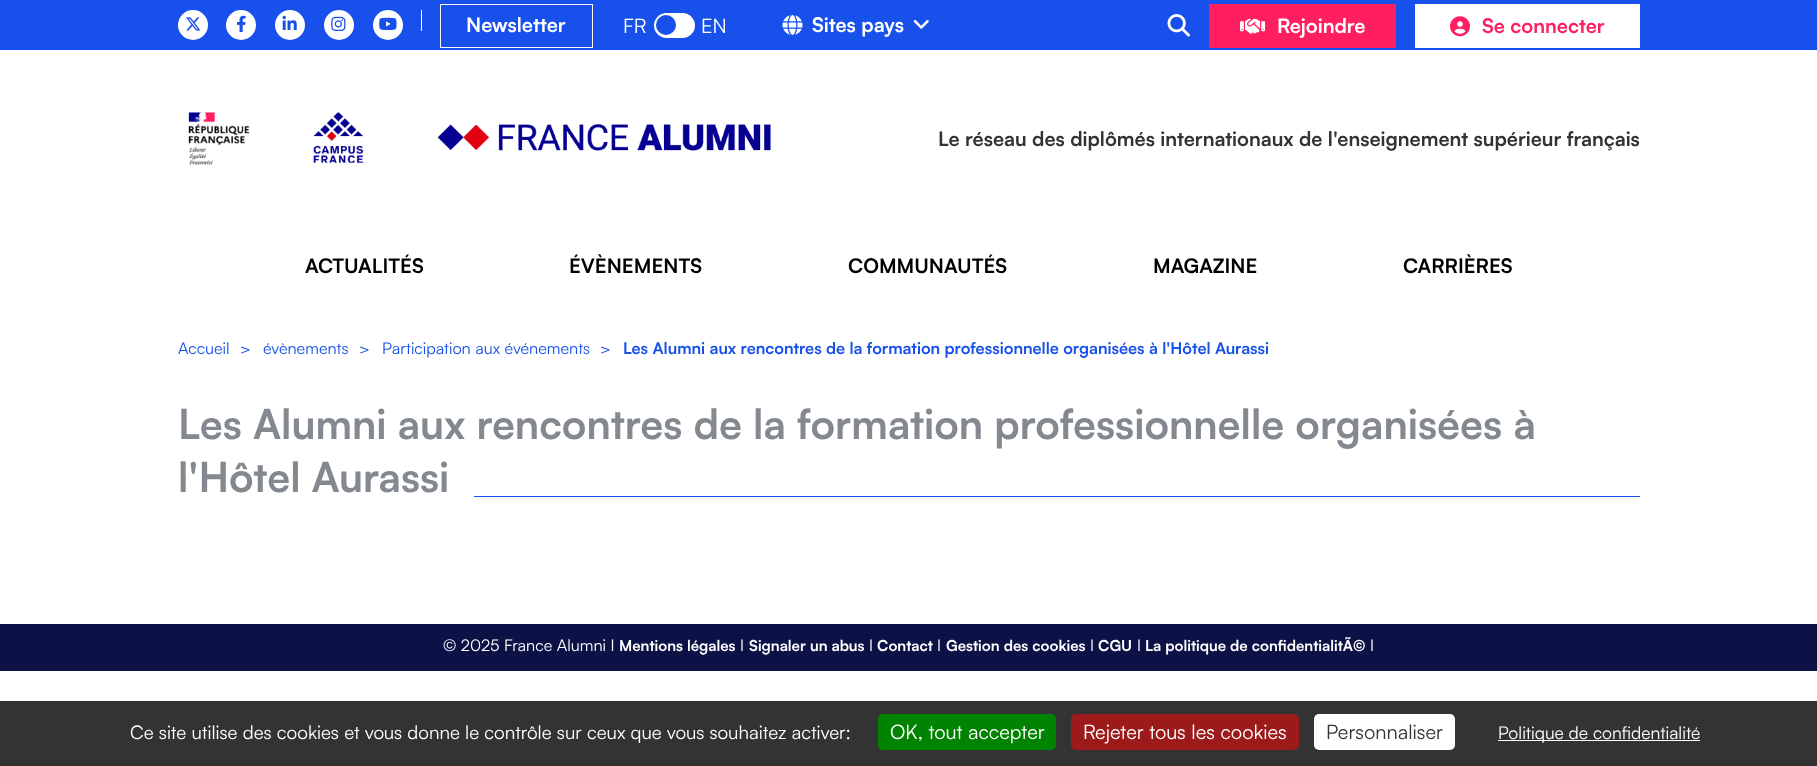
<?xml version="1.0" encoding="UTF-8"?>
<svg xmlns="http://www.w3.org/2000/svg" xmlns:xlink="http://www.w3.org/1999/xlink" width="1817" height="766">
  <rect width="100%" height="100%" fill="#ffffff" />
  <rect width="1817" height="50" fill="#1750ea" />
  <circle cx="193" cy="25" r="15" fill="#ffffff" />
  <image x="186" y="17" width="15" height="14" xlink:href="image1.png" />
  <circle cx="241" cy="25" r="15" fill="#ffffff" />
  <image x="237" y="15" width="9" height="17" xlink:href="image2.png" />
  <circle cx="290" cy="25" r="15" fill="#ffffff" />
  <image x="282" y="15" width="15" height="15" xlink:href="image3.png" />
  <circle cx="339" cy="25" r="15" fill="#ffffff" />
  <image x="331" y="16" width="15" height="15" xlink:href="image4.png" />
  <circle cx="388" cy="25" r="15" fill="#ffffff" />
  <image x="379" y="17" width="18" height="13" xlink:href="image5.png" />
  <rect x="421" y="10" width="1" height="21" fill="#ffffff" />
  <rect x="440.5" y="4.5" width="152" height="43" fill="none" stroke="#fefeff" />
  <rect x="654" y="13" width="41" height="25" rx="12.5" fill="#ffffff" />
  <circle cx="666" cy="25" r="10" fill="#1750ea" />
  <image x="782" y="15" width="21" height="20" xlink:href="image6.png" />
  <image x="913" y="20" width="16" height="9" xlink:href="image7.png" />
  <image x="1167" y="14" width="23" height="23" xlink:href="image8.png" />
  <rect x="1209" y="4" width="187" height="44" fill="#ff1e5f" />
  <image x="1240" y="18" width="25" height="16" xlink:href="image9.png" />
  <rect x="1415" y="4" width="225" height="44" fill="#ffffff" />
  <image x="1450" y="16" width="20" height="21" xlink:href="image10.png" />
  <image x="188" y="112" width="583" height="53" xlink:href="image11.png" />
  <rect x="474" y="496" width="1166" height="1" fill="#1750ea" />
  <rect y="624" width="1817" height="47" fill="#0c1246" />
  <rect y="701" width="1817" height="65" fill="#333333" />
  <rect x="878" y="714" width="178" height="36" rx="5" fill="#008300" />
  <rect x="1071" y="714" width="228" height="36" rx="5" fill="#9c1a1a" />
  <rect x="1314" y="714" width="141" height="36" rx="5" fill="#ffffff" />
  <rect x="1498" y="740" width="202" height="1" fill="#ffffff" />
  <text x="466" y="32" style="font-family: Satoshi; font-size: 20px; font-weight: bold; fill: #ffffff">Newsletter</text>
  <text x="623" y="33" style="font-family: Satoshi; font-size: 20px; fill: #ffffff">FR</text>
  <text x="701" y="33" style="font-family: Satoshi; font-size: 20px; fill: #ffffff">EN</text>
  <text x="812" y="32" style="font-family: Satoshi; font-size: 20px; font-weight: bold; fill: #ffffff">Sites pays</text>
  <text x="1277" y="33" style="font-family: Satoshi; font-size: 20px; font-weight: bold; fill: #ffffff">Rejoindre</text>
  <text x="1482" y="33" style="font-family: Satoshi; font-size: 20px; font-weight: bold; fill: #ff1e5f">Se connecter</text>
  <text x="938" y="146" style="font-family: Satoshi; font-size: 20px; font-weight: bold; fill: #333333">Le réseau des diplômés internationaux de l'enseignement supérieur français</text>
  <text x="305" y="273" style="font-family: Satoshi; font-size: 20px; font-weight: bold; fill: #000000">ACTUALITÉS</text>
  <text x="569" y="273" style="font-family: Satoshi; font-size: 20px; font-weight: bold; fill: #000000">ÉVÈNEMENTS</text>
  <text x="848" y="273" style="font-family: Satoshi; font-size: 20px; font-weight: bold; fill: #000000">COMMUNAUTÉS</text>
  <text x="1153" y="273" style="font-family: Satoshi; font-size: 20px; font-weight: bold; fill: #000000">MAGAZINE</text>
  <text x="1403" y="273" style="font-family: Satoshi; font-size: 20px; font-weight: bold; fill: #000000">CARRIÈRES</text>
  <text x="178" y="354" style="font-family: Satoshi; font-size: 16.25px; fill: #1750ea">Accueil</text>
  <text x="240" y="354" style="font-family: Satoshi; font-size: 16.25px; fill: #1750ea">&gt;</text>
  <text x="263" y="354" style="font-family: Satoshi; font-size: 16.25px; fill: #1750ea">évènements</text>
  <text x="359" y="354" style="font-family: Satoshi; font-size: 16.25px; fill: #1750ea">&gt;</text>
  <text x="382" y="354" style="font-family: Satoshi; font-size: 16.25px; fill: #1750ea">Participation aux événements</text>
  <text x="600" y="354" style="font-family: Satoshi; font-size: 16.25px; fill: #1750ea">&gt;</text>
  <text x="623" y="354" style="font-family: Satoshi; font-size: 16.25px; font-weight: bold; fill: #1750ea">Les Alumni aux rencontres de la formation professionnelle organisées à l'Hôtel Aurassi</text>
  <text x="178" y="439" style="font-family: Satoshi; font-size: 41.25px; font-weight: bold; fill: #848990">Les Alumni aux rencontres de la formation professionnelle organisées à</text>
  <text x="178" y="492" style="font-family: Satoshi; font-size: 41.25px; font-weight: bold; fill: #848990">l'Hôtel Aurassi</text>
  <text x="443" y="651" style="font-family: Satoshi; font-size: 16.25px; fill: #ffffff">© 2025 France Alumni I</text>
  <text x="619" y="651" style="font-family: Satoshi; font-size: 15px; font-weight: bold; fill: #ffffff">Mentions légales</text>
  <text x="740" y="651" style="font-family: Satoshi; font-size: 16.25px; fill: #ffffff">I</text>
  <text x="749" y="651" style="font-family: Satoshi; font-size: 15px; font-weight: bold; fill: #ffffff">Signaler un abus</text>
  <text x="869" y="651" style="font-family: Satoshi; font-size: 16.25px; fill: #ffffff">I</text>
  <text x="877" y="651" style="font-family: Satoshi; font-size: 15px; font-weight: bold; fill: #ffffff">Contact</text>
  <text x="937" y="651" style="font-family: Satoshi; font-size: 16.25px; fill: #ffffff">I</text>
  <text x="946" y="651" style="font-family: Satoshi; font-size: 15px; font-weight: bold; fill: #ffffff">Gestion des cookies</text>
  <text x="1090" y="651" style="font-family: Satoshi; font-size: 16.25px; fill: #ffffff">I</text>
  <text x="1098" y="651" style="font-family: Satoshi; font-size: 15px; font-weight: bold; fill: #ffffff">CGU</text>
  <text x="1137" y="651" style="font-family: Satoshi; font-size: 16.25px; fill: #ffffff">I</text>
  <text x="1145" y="651" style="font-family: Satoshi; font-size: 15px; font-weight: bold; fill: #ffffff">La politique de confidentialitÃ©</text>
  <text x="1370" y="651" style="font-family: Satoshi; font-size: 16.25px; fill: #ffffff">I</text>
  <text x="130" y="739" style="font-family: Satoshi; font-size: 18.75px; fill: #ffffff">Ce site utilise des cookies et vous donne le contrôle sur ceux que vous souhaitez activer:</text>
  <text x="890" y="739" style="font-family: Satoshi; font-size: 20px; fill: #ffffff">OK, tout accepter</text>
  <text x="1083" y="739" style="font-family: Satoshi; font-size: 20px; fill: #ffffff">Rejeter tous les cookies</text>
  <text x="1326" y="739" style="font-family: Satoshi; font-size: 20px; fill: #333333">Personnaliser</text>
  <text x="1498" y="739" style="font-family: Satoshi; font-size: 17.5px; fill: #ffffff">Politique de confidentialité</text>
</svg>
